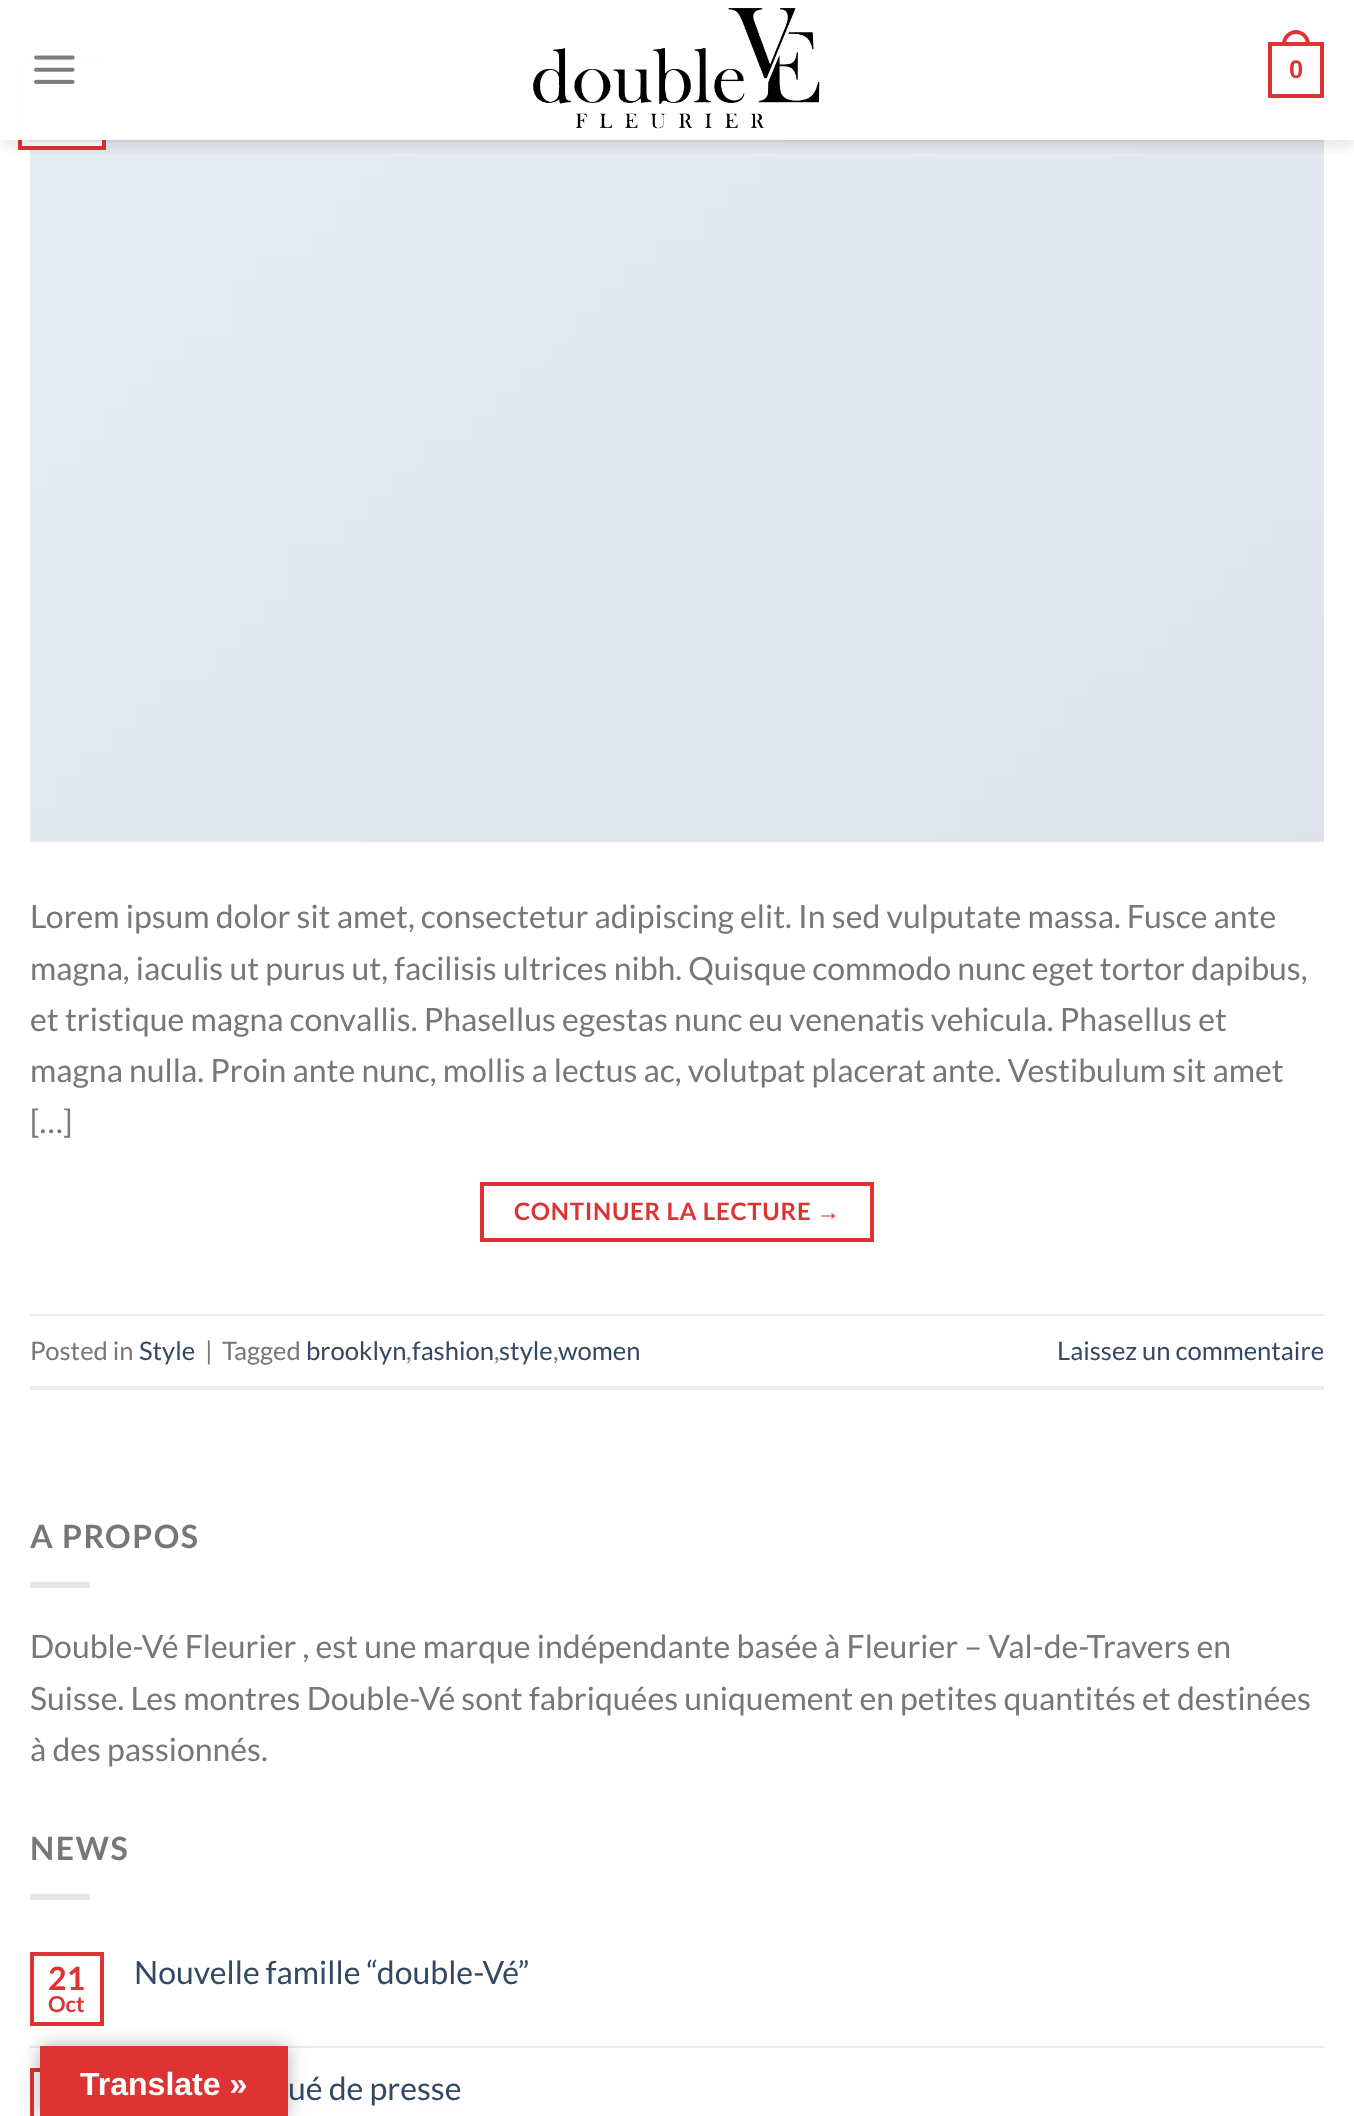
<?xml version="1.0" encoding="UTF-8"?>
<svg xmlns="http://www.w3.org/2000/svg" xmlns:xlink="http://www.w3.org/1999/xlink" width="1354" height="2116">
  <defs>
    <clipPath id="clip1"><rect x="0" y="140" width="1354" height="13" /></clipPath>
  </defs>
  <rect width="100%" height="100%" fill="#ffffff" />
  <image x="30" y="2" width="1294" height="840" xlink:href="image3.png" />
  <rect x="30" y="64" width="72" height="82" fill="#ffffff" />
  <rect x="20" y="62" width="84" height="86" fill="none" stroke="#dd3333" stroke-width="4" />
  <g clip-path="url(#clip1)">
    <rect x="2" y="2" width="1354" height="140" fill="#000000" fill-opacity="0.15" filter="blur(10px)" />
  </g>
  <rect x="18" y="2" width="1306" height="138" fill="#ffffff" fill-opacity="0.9" />
  <rect x="18" y="2" width="1306" height="138" fill="#ffffff" fill-opacity="0.9" />
  <image x="34" y="55" width="41" height="29" xlink:href="image1.png" />
  <image x="533" y="8" width="287" height="121" xlink:href="image2.png" />
  <rect x="1270" y="44" width="52" height="52" fill="none" stroke="#dd3333" stroke-width="4" />
  <path d="M 1296 30 c 7.5 0 14 6.5 14 14 v 2 h -28 v -2 c 0 -7.5 6.5 -14 14 -14 z m 0 4 c 5.5 0 10 4.5 10 10 v 2 h -20 v -2 c 0 -5.5 4.5 -10 10 -10 z" fill="#dd3333" fill-rule="evenodd" />
  <rect x="30" y="140" width="1294" height="2" fill="#777777" fill-opacity="0.1" />
  <rect x="482" y="1184" width="390" height="56" fill="none" stroke="#dd3333" stroke-width="4" />
  <rect x="30" y="1314" width="1294" height="2" fill="#ececec" />
  <rect x="30" y="1386" width="1294" height="4" fill="#ececec" />
  <rect x="30" y="1582" width="60" height="6" fill="#e6e6e6" />
  <rect x="30" y="1894" width="60" height="6" fill="#e6e6e6" />
  <rect x="32" y="1954" width="70" height="70" fill="none" stroke="#dd3333" stroke-width="4" />
  <rect x="30" y="2046" width="1294" height="2" fill="#ececec" />
  <rect x="32" y="2070" width="70" height="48" fill="none" stroke="#dd3333" stroke-width="4" />
  <rect x="40" y="2046" width="248" height="70" fill="#000000" fill-opacity="0.3" filter="blur(9px)" />
  <rect x="40" y="2046" width="248" height="70" fill="#dd3333" />
  <text x="1289" y="78" style="font-family: Liberation Sans; font-size: 25.6px; font-weight: bold; fill: #dd3333">0</text>
  <text x="30" y="928" style="font-family: Lato; font-size: 32px; fill: #777777">Lorem ipsum dolor sit amet, consectetur adipiscing elit. In sed vulputate massa. Fusce ante</text>
  <text x="30" y="980" style="font-family: Lato; font-size: 32px; fill: #777777">magna, iaculis ut purus ut, facilisis ultrices nibh. Quisque commodo nunc eget tortor dapibus,</text>
  <text x="30" y="1031" style="font-family: Lato; font-size: 32px; fill: #777777">et tristique magna convallis. Phasellus egestas nunc eu venenatis vehicula. Phasellus et</text>
  <text x="30" y="1082" style="font-family: Lato; font-size: 32px; fill: #777777">magna nulla. Proin ante nunc, mollis a lectus ac, volutpat placerat ante. Vestibulum sit amet</text>
  <text x="30" y="1133" style="font-family: Lato; font-size: 32px; fill: #777777">[…]</text>
  <text x="514" y="1220" style="font-family: Lato; font-size: 24px; font-weight: bold; letter-spacing: 0.75px; fill: #dd3333">CONTINUER LA LECTURE</text>
  <text x="816" y="1220" style="font-family: Liberation Sans; font-size: 24px; font-weight: bold; letter-spacing: 0.75px; fill: #dd3333">→</text>
  <text x="30" y="1360" style="font-family: Lato; font-size: 25.6px; fill: #777777">Posted in</text>
  <text x="139" y="1360" style="font-family: Lato; font-size: 25.6px; fill: #334862">Style</text>
  <text x="205" y="1360" style="font-family: Lato; font-size: 25.6px; fill: #777777">|</text>
  <text x="222" y="1360" style="font-family: Lato; font-size: 25.6px; fill: #777777">Tagged</text>
  <text x="306" y="1360" style="font-family: Lato; font-size: 25.6px; fill: #334862">brooklyn</text>
  <text x="406" y="1360" style="font-family: Lato; font-size: 25.6px; fill: #777777">,</text>
  <text x="412" y="1360" style="font-family: Lato; font-size: 25.6px; fill: #334862">fashion</text>
  <text x="494" y="1360" style="font-family: Lato; font-size: 25.6px; fill: #777777">,</text>
  <text x="499" y="1360" style="font-family: Lato; font-size: 25.6px; fill: #334862">style</text>
  <text x="553" y="1360" style="font-family: Lato; font-size: 25.6px; fill: #777777">,</text>
  <text x="558" y="1360" style="font-family: Lato; font-size: 25.6px; fill: #334862">women</text>
  <text x="1057" y="1360" style="font-family: Lato; font-size: 25.6px; fill: #334862">Laissez un commentaire</text>
  <text x="30" y="1548" style="font-family: Lato; font-size: 32px; font-weight: bold; letter-spacing: 1.5px; fill: #777777">A PROPOS</text>
  <text x="30" y="1658" style="font-family: Lato; font-size: 32px; fill: #777777">Double-Vé Fleurier , est une marque indépendante basée à Fleurier – Val-de-Travers en</text>
  <text x="30" y="1710" style="font-family: Lato; font-size: 32px; fill: #777777">Suisse. Les montres Double-Vé sont fabriquées uniquement en petites quantités et destinées</text>
  <text x="30" y="1761" style="font-family: Lato; font-size: 32px; fill: #777777">à des passionnés.</text>
  <text x="30" y="1860" style="font-family: Lato; font-size: 32px; font-weight: bold; letter-spacing: 1.5px; fill: #777777">NEWS</text>
  <text x="48" y="1990" style="font-family: Lato; font-size: 32px; font-weight: bold; fill: #dd3333">21</text>
  <text x="48" y="2012" style="font-family: Lato; font-size: 22px; font-weight: bold; fill: #dd3333">Oct</text>
  <text x="134" y="1984" style="font-family: Lato; font-size: 32px; fill: #334862">Nouvelle famille “double-Vé”</text>
  <text x="288" y="2100" style="font-family: Lato; font-size: 32px; fill: #334862">ué de presse</text>
  <text x="80" y="2095" style="font-family: Liberation Sans; font-size: 32px; font-weight: bold; fill: #ffffff">Translate »</text>
</svg>
